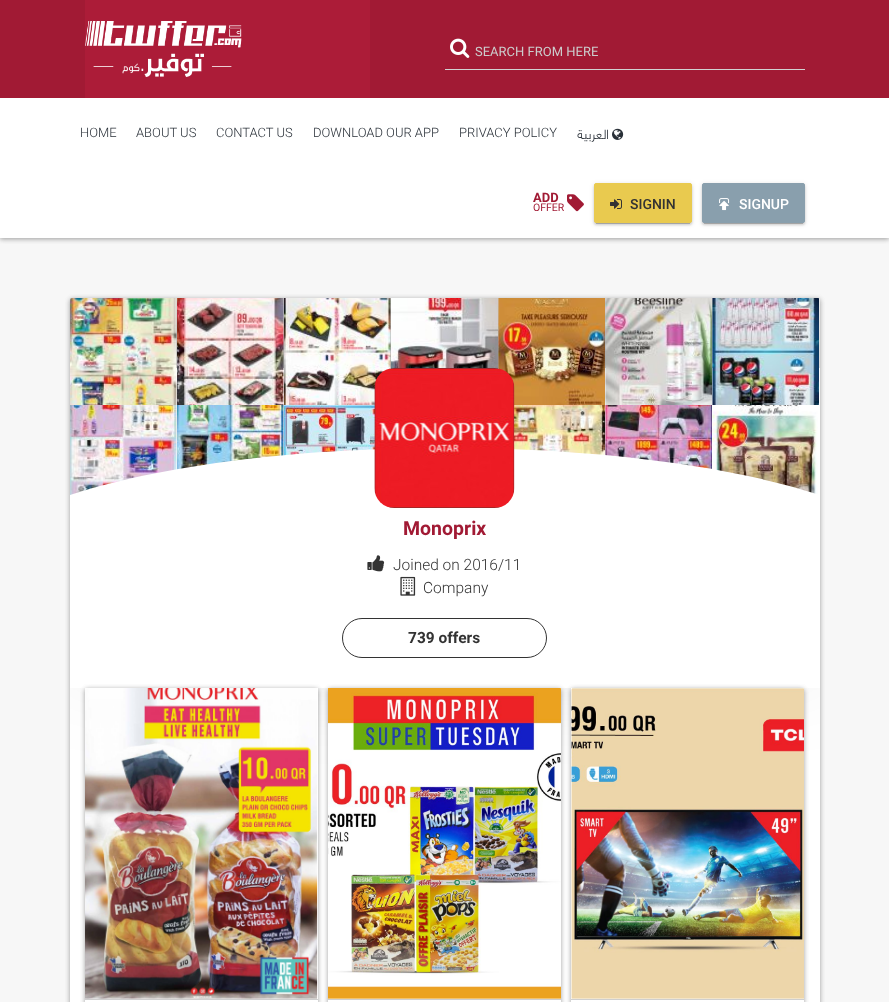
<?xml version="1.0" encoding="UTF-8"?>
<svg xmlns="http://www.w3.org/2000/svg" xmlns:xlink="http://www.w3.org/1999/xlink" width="889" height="1002">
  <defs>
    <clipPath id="clip1"><rect x="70" y="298" width="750" height="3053" rx="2" /></clipPath>
    <clipPath id="clip2"><path d="M 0 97 h 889 v 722 h -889 z m 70 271 h 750 v 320 h -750 z" clip-rule="evenodd" /></clipPath>
  </defs>
  <rect width="100%" height="100%" fill="#f7f7f7" />
  <rect y="1" width="889" height="238" fill="#000000" fill-opacity="0.19" filter="blur(2.5px)" />
  <rect y="1" width="889" height="238" fill="#000000" fill-opacity="0.2" filter="blur(2.5px)" />
  <rect width="889" height="98" fill="#a11a34" />
  <rect x="85" width="285" height="98" fill="#ac1c38" />
  <image x="85" y="21" width="157" height="56" xlink:href="image1.png" />
  <image x="450" y="38" width="20" height="20" xlink:href="image2.png" />
  <rect x="445" y="69" width="360" height="1" fill="#d2d2d2" />
  <rect y="98" width="889" height="140" fill="#ffffff" />
  <rect x="70" y="299" width="750" height="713" rx="2" fill="#000000" fill-opacity="0.19" filter="blur(2.5px)" />
  <rect x="70" y="299" width="750" height="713" rx="2" fill="#000000" fill-opacity="0.2" filter="blur(2.5px)" />
  <rect x="70" y="298" width="750" height="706" rx="2" fill="#ffffff" />
  <g clip-path="url(#clip1)">
    <g clip-path="url(#clip2)">
      <rect x="95" y="323" width="700" height="270" fill="#000000" fill-opacity="0.5" filter="blur(75px)" />
    </g>
  </g>
  <image x="612" y="128" width="12" height="12" xlink:href="image3.png" />
  <image x="567" y="194" width="17" height="18" xlink:href="image4.png" />
  <rect x="594" y="184" width="98" height="40" rx="2" fill="#000000" fill-opacity="0.12" filter="blur(2.5px)" />
  <rect x="596" y="188" width="94" height="36" fill="#000000" fill-opacity="0.2" filter="blur(0.5px)" />
  <rect x="594" y="185" width="98" height="40" rx="2" fill="#000000" fill-opacity="0.14" filter="blur(1px)" />
  <rect x="594.5" y="183.5" width="97" height="39" rx="1.5" fill="#e9ca4f" stroke="#e9ca4f" />
  <image x="610" y="199" width="12" height="10" xlink:href="image5.png" />
  <rect x="702" y="184" width="103" height="40" rx="2" fill="#000000" fill-opacity="0.12" filter="blur(2.5px)" />
  <rect x="704" y="188" width="99" height="36" fill="#000000" fill-opacity="0.2" filter="blur(0.5px)" />
  <rect x="702" y="185" width="103" height="40" rx="2" fill="#000000" fill-opacity="0.14" filter="blur(1px)" />
  <rect x="702.5" y="183.5" width="102" height="39" rx="1.5" fill="#899fad" stroke="#899fad" />
  <image x="719" y="198" width="11" height="13" xlink:href="image6.png" />
  <image x="70" y="298" width="107" height="107" xlink:href="image7.png" />
  <image x="177" y="298" width="107" height="107" xlink:href="image8.png" />
  <image x="284" y="298" width="107" height="107" xlink:href="image9.png" />
  <image x="391" y="298" width="107" height="71" xlink:href="image10.png" />
  <image x="498" y="298" width="107" height="107" xlink:href="image11.png" />
  <image x="605" y="298" width="107" height="107" xlink:href="image12.png" />
  <image x="712" y="298" width="107" height="107" xlink:href="image13.png" />
  <image x="70" y="405" width="107" height="90" xlink:href="image14.png" />
  <image x="177" y="405" width="107" height="65" xlink:href="image15.png" />
  <image x="284" y="405" width="91" height="51" xlink:href="image16.png" />
  <image x="514" y="405" width="91" height="51" xlink:href="image17.png" />
  <image x="605" y="405" width="107" height="65" xlink:href="image18.png" />
  <image x="712" y="405" width="106" height="90" xlink:href="image19.png" />
  <path d="M 444 448 c 151 0 287 18 376 47 v 83 h -750 v -83 c 89 -29 224 -47 374 -47 z" fill="#ffffff" />
  <image x="374" y="368" width="141" height="140" xlink:href="image20.png" />
  <image x="367" y="555" width="18" height="17" xlink:href="image21.png" />
  <image x="400" y="576" width="16" height="20" xlink:href="image22.png" />
  <rect x="342.5" y="618.5" width="204" height="39" rx="19.5" fill="none" stroke="#333333" />
  <rect x="85" y="689" width="233" height="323" rx="2" fill="#000000" fill-opacity="0.19" filter="blur(2.5px)" />
  <rect x="85" y="689" width="233" height="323" rx="2" fill="#000000" fill-opacity="0.2" filter="blur(2.5px)" />
  <rect x="85" y="688" width="233" height="314" fill="#ffffff" />
  <rect x="85" y="999" width="233" height="1" fill="#cfcfcf" />
  <image x="85" y="688" width="233" height="311" xlink:href="image23.png" />
  <rect x="328" y="689" width="233" height="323" rx="2" fill="#000000" fill-opacity="0.19" filter="blur(2.5px)" />
  <rect x="328" y="689" width="233" height="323" rx="2" fill="#000000" fill-opacity="0.2" filter="blur(2.5px)" />
  <rect x="328" y="688" width="233" height="314" fill="#ffffff" />
  <rect x="328" y="999" width="233" height="1" fill="#cfcfcf" />
  <image x="328" y="688" width="233" height="311" xlink:href="image24.png" />
  <rect x="571" y="689" width="233" height="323" rx="2" fill="#000000" fill-opacity="0.19" filter="blur(2.5px)" />
  <rect x="571" y="689" width="233" height="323" rx="2" fill="#000000" fill-opacity="0.2" filter="blur(2.5px)" />
  <rect x="571" y="688" width="233" height="314" fill="#ffffff" />
  <rect x="571" y="999" width="233" height="1" fill="#cfcfcf" />
  <image x="571" y="688" width="233" height="311" xlink:href="image25.png" />
  <text x="475" y="56" style="font-family: Roboto; font-size: 13px; fill: #cccccc">SEARCH FROM HERE</text>
  <text x="80" y="137" style="font-family: Roboto; font-size: 13px; font-weight: 300; fill: #282f37">HOME</text>
  <text x="136" y="137" style="font-family: Roboto; font-size: 13px; font-weight: 300; fill: #282f37">ABOUT US</text>
  <text x="216" y="137" style="font-family: Roboto; font-size: 13px; font-weight: 300; fill: #282f37">CONTACT US</text>
  <text x="313" y="137" style="font-family: Roboto; font-size: 13px; font-weight: 300; fill: #282f37">DOWNLOAD OUR APP</text>
  <text x="459" y="137" style="font-family: Roboto; font-size: 13px; font-weight: 300; fill: #282f37">PRIVACY POLICY</text>
  <text x="609" y="139" style="font-family: 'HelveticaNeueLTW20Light'; font-size: 13px; font-weight: 300; direction: rtl; fill: #282f37">العربية</text>
  <text x="533" y="202" style="font-family: Roboto; font-size: 13px; font-weight: bold; fill: #a11a34">ADD</text>
  <text x="533" y="211" style="font-family: Roboto; font-size: 10.5px; fill: #a11a34">OFFER</text>
  <text x="630" y="209" style="font-family: Roboto; font-size: 14px; font-weight: 500; fill: #333333">SIGNIN</text>
  <text x="739" y="209" style="font-family: Roboto; font-size: 14px; font-weight: 500; fill: #ffffff">SIGNUP</text>
  <text x="403" y="535" style="font-family: Roboto; font-size: 19.5px; font-weight: bold; fill: #a11a34">Monoprix</text>
  <text x="393" y="570" style="font-family: Roboto; font-size: 15.5px; font-weight: 300; fill: #333333">Joined on 2016/11</text>
  <text x="423" y="593" style="font-family: Roboto; font-size: 15.5px; font-weight: 300; fill: #333333">Company</text>
  <text x="408" y="643" style="font-family: Roboto; font-size: 15.5px; font-weight: bold; fill: #333333">739 offers</text>
</svg>
